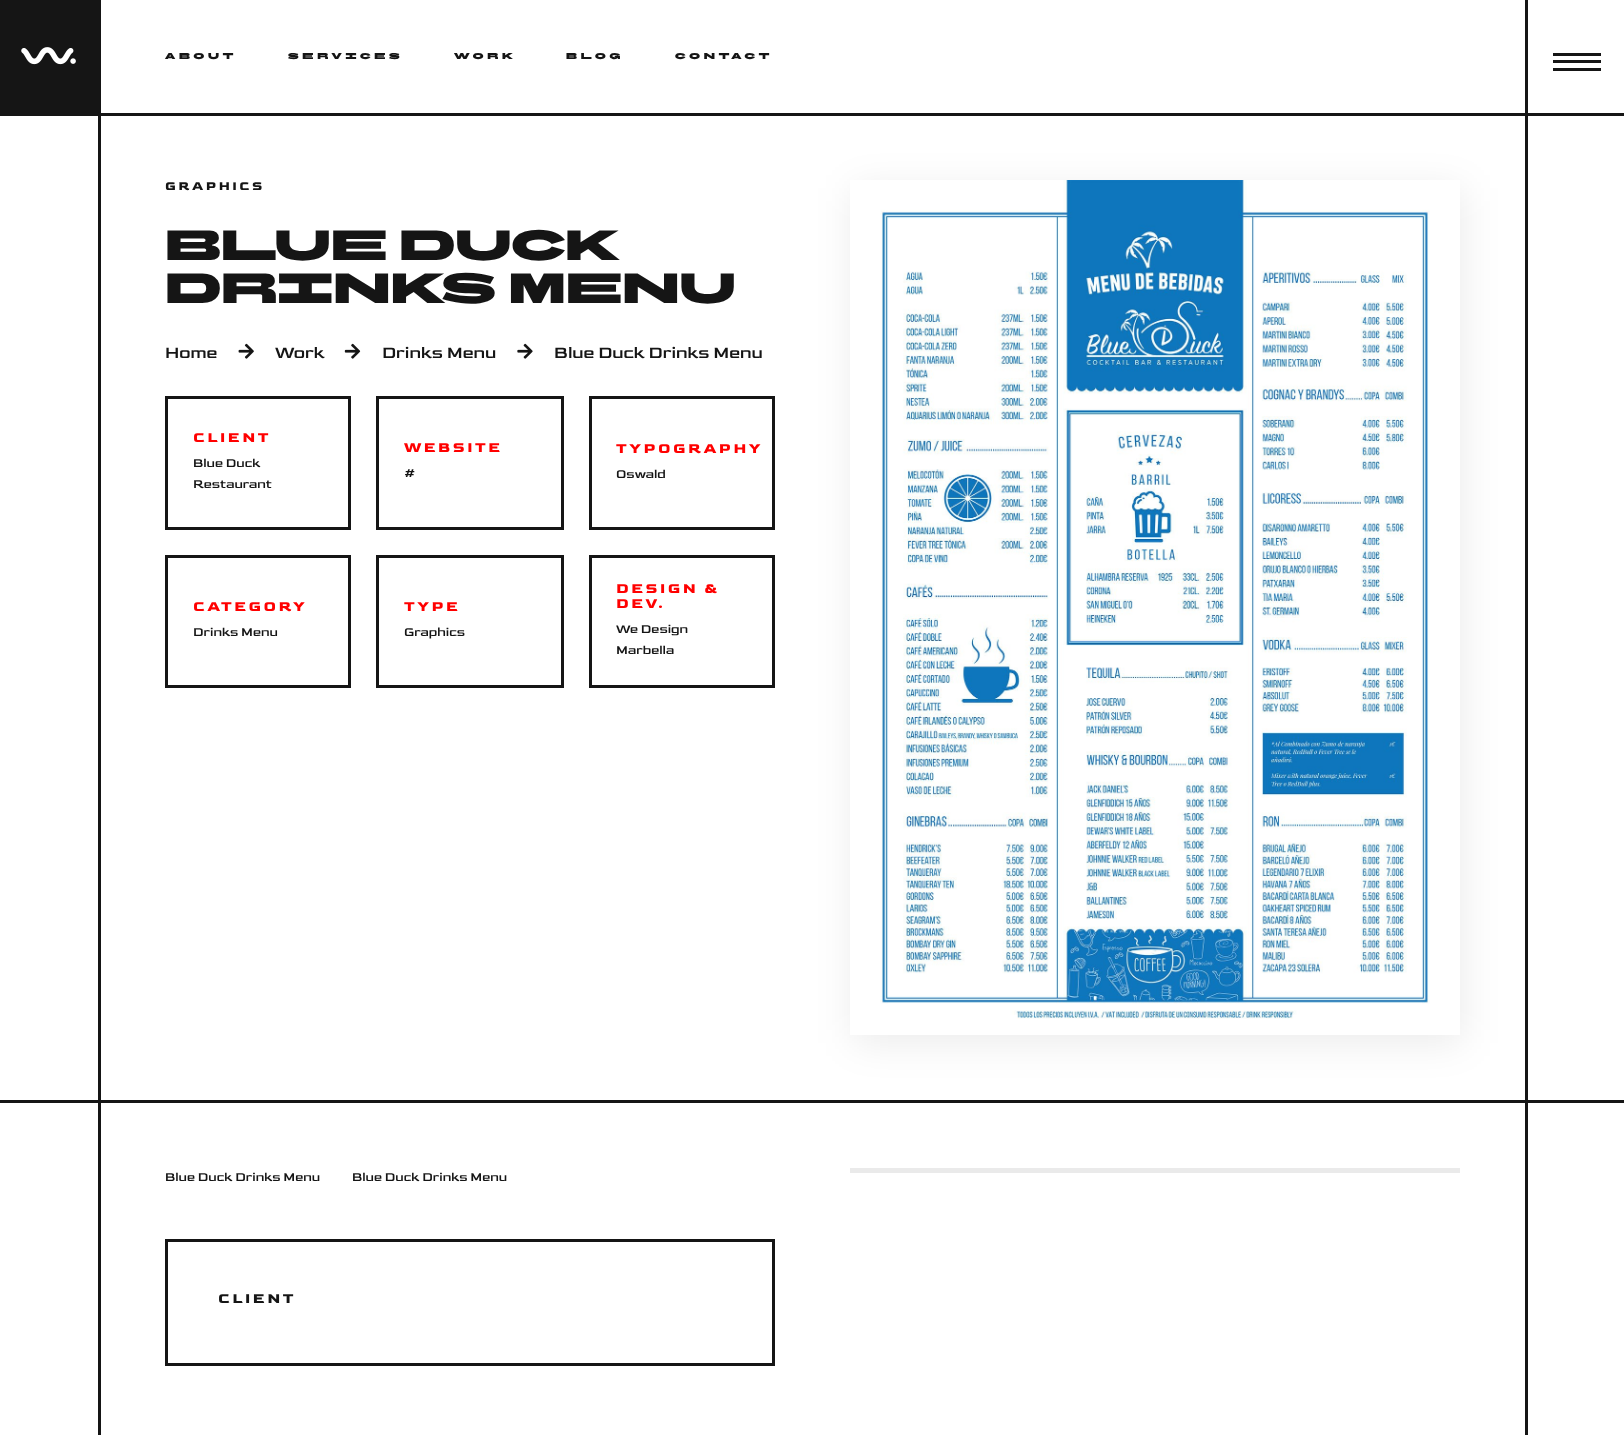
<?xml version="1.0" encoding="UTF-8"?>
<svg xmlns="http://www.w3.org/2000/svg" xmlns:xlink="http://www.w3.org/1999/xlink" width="1624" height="1435">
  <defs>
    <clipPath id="clip1"><path d="M 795 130 h 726 v 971 h -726 z m 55 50 h 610 v 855 h -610 z" clip-rule="evenodd" /></clipPath>
  </defs>
  <rect width="100%" height="100%" fill="#ffffff" />
  <rect x="1525" y="115" width="3" height="985" fill="#151515" />
  <rect x="98" y="115" width="3" height="985" fill="#151515" />
  <rect y="113" width="1624" height="3" fill="#151515" />
  <rect width="101" height="113" fill="#151515" />
  <image x="21" y="47" width="55" height="18" xlink:href="image1.png" />
  <rect x="1525" width="3" height="113" fill="#151515" />
  <rect x="1553" y="53" width="48" height="3" fill="#151515" />
  <rect x="1553" y="60" width="48" height="3" fill="#151515" />
  <rect x="1553" y="68" width="48" height="3" fill="#151515" />
  <rect y="1100" width="1624" height="3" fill="#151515" />
  <image x="238" y="343" width="16" height="16" xlink:href="image2.png" />
  <image x="344" y="343" width="17" height="16" xlink:href="image3.png" />
  <image x="517" y="343" width="16" height="16" xlink:href="image4.png" />
  <rect x="166.5" y="397.5" width="183" height="131" fill="none" stroke="#151515" stroke-width="3" />
  <rect x="377.5" y="397.5" width="185" height="131" fill="none" stroke="#151515" stroke-width="3" />
  <rect x="590.5" y="397.5" width="183" height="131" fill="none" stroke="#151515" stroke-width="3" />
  <rect x="166.5" y="556.5" width="183" height="130" fill="none" stroke="#151515" stroke-width="3" />
  <rect x="377.5" y="556.5" width="185" height="130" fill="none" stroke="#151515" stroke-width="3" />
  <rect x="590.5" y="556.5" width="183" height="130" fill="none" stroke="#151515" stroke-width="3" />
  <g clip-path="url(#clip1)">
    <rect x="853" y="188" width="610" height="855" fill="#000000" fill-opacity="0.08" filter="blur(19px)" />
  </g>
  <image x="880" y="180" width="550" height="839" xlink:href="image5.png" />
  <rect x="1525" y="1103" width="3" height="332" fill="#151515" />
  <rect x="98" y="1103" width="3" height="332" fill="#151515" />
  <rect x="850" y="1168" width="610" height="5" fill="#eaeaea" />
  <rect x="166.5" y="1240.5" width="607" height="124" fill="none" stroke="#151515" stroke-width="3" />
  <text x="165" y="59" style="font-family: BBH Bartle; font-size: 8.1px; font-weight: bold; letter-spacing: 4px; fill: #151515">About</text>
  <text x="288" y="59" style="font-family: BBH Bartle; font-size: 8.1px; font-weight: bold; letter-spacing: 4px; fill: #151515">Services</text>
  <text x="454" y="59" style="font-family: BBH Bartle; font-size: 8.1px; font-weight: bold; letter-spacing: 4px; fill: #151515">Work</text>
  <text x="566" y="59" style="font-family: BBH Bartle; font-size: 8.1px; font-weight: bold; letter-spacing: 4px; fill: #151515">Blog</text>
  <text x="675" y="59" style="font-family: BBH Bartle; font-size: 8.1px; font-weight: bold; letter-spacing: 4px; fill: #151515">Contact</text>
  <text x="165" y="190" style="font-family: Goldman; font-size: 13px; font-weight: bold; letter-spacing: 2.5px; fill: #151515">GRAPHICS</text>
  <text x="165" y="260" word-spacing="-1" style="font-family: BBH Bartle; font-size: 42.25px; fill: #151515">BLUE DUCK</text>
  <text x="165" y="303" style="font-family: BBH Bartle; font-size: 42.25px; fill: #151515">DRINKS MENU</text>
  <text x="165" y="358" style="font-family: Goldman; font-size: 17.5px; fill: #151515">Home</text>
  <text x="275" y="358" style="font-family: Goldman; font-size: 17.5px; fill: #151515">Work</text>
  <text x="382" y="358" style="font-family: Goldman; font-size: 17.5px; fill: #151515">Drinks Menu</text>
  <text x="554" y="358" style="font-family: Goldman; font-size: 17.5px; fill: #151515">Blue Duck Drinks Menu</text>
  <text x="193" y="442" style="font-family: Goldman; font-size: 15px; font-weight: bold; letter-spacing: 2.5px; fill: #ff0000">CLIENT</text>
  <text x="193" y="467" style="font-family: Goldman; font-size: 13px; fill: #151515">Blue Duck</text>
  <text x="193" y="488" style="font-family: Goldman; font-size: 13px; fill: #151515">Restaurant</text>
  <text x="404" y="452" style="font-family: Goldman; font-size: 15px; font-weight: bold; letter-spacing: 2.5px; fill: #ff0000">WEBSITE</text>
  <text x="404" y="477" style="font-family: Goldman; font-size: 13px; fill: #151515">#</text>
  <text x="616" y="453" style="font-family: Goldman; font-size: 15px; font-weight: bold; letter-spacing: 2.5px; fill: #ff0000">TYPOGRAPHY</text>
  <text x="616" y="478" style="font-family: Goldman; font-size: 13px; fill: #151515">Oswald</text>
  <text x="193" y="611" style="font-family: Goldman; font-size: 15px; font-weight: bold; letter-spacing: 2.5px; fill: #ff0000">CATEGORY</text>
  <text x="193" y="636" style="font-family: Goldman; font-size: 13px; fill: #151515">Drinks Menu</text>
  <text x="404" y="611" style="font-family: Goldman; font-size: 15px; font-weight: bold; letter-spacing: 2.5px; fill: #ff0000">TYPE</text>
  <text x="404" y="636" style="font-family: Goldman; font-size: 13px; fill: #151515">Graphics</text>
  <text x="616" y="593" style="font-family: Goldman; font-size: 15px; font-weight: bold; letter-spacing: 2.5px; fill: #ff0000">DESIGN &amp;</text>
  <text x="616" y="608" style="font-family: Goldman; font-size: 15px; font-weight: bold; letter-spacing: 2.5px; fill: #ff0000">DEV.</text>
  <text x="616" y="633" style="font-family: Goldman; font-size: 13px; fill: #151515">We Design</text>
  <text x="616" y="654" style="font-family: Goldman; font-size: 13px; fill: #151515">Marbella</text>
  <text x="165" y="1181" style="font-family: Goldman; font-size: 13px; fill: #151515">Blue Duck Drinks Menu</text>
  <text x="352" y="1181" style="font-family: Goldman; font-size: 13px; fill: #151515">Blue Duck Drinks Menu</text>
  <text x="218" y="1303" style="font-family: Goldman; font-size: 15px; font-weight: bold; letter-spacing: 2.5px; fill: #151515">CLIENT</text>
</svg>
